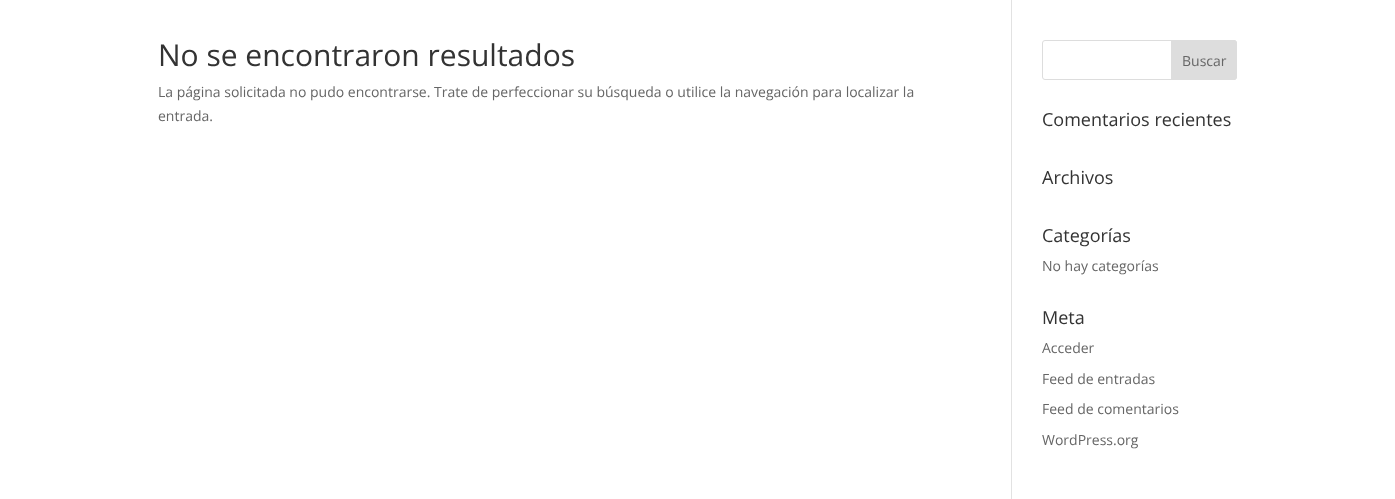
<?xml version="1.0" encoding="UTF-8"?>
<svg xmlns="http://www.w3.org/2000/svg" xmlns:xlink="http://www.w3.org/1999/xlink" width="1395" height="499">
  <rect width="100%" height="100%" fill="#ffffff" />
  <rect x="1011" width="1" height="499" fill="#e2e2e2" />
  <rect x="1042.5" y="40.5" width="194" height="39" rx="2.5" fill="none" stroke="#dddddd" />
  <path d="M 1171.5 40.5 h 62.5 c 1.5 0 2.5 1 2.5 2.5 v 34 c 0 1.5 -1 2.5 -2.5 2.5 h -62.5 z" fill="#dddddd" stroke="#dddddd" />
  <text x="158" y="66" style="font-family: Open Sans; font-size: 30px; fill: #333333">No se encontraron resultados</text>
  <text x="158" y="97" style="font-family: Open Sans; font-size: 14px; fill: #666666">La página solicitada no pudo encontrarse. Trate de perfeccionar su búsqueda o utilice la navegación para localizar la</text>
  <text x="158" y="121" style="font-family: Open Sans; font-size: 14px; fill: #666666">entrada.</text>
  <text x="1182" y="66" style="font-family: Open Sans; font-size: 14px; fill: #666666">Buscar</text>
  <text x="1042" y="126" style="font-family: Open Sans; font-size: 18px; fill: #333333">Comentarios recientes</text>
  <text x="1042" y="184" style="font-family: Open Sans; font-size: 18px; fill: #333333">Archivos</text>
  <text x="1042" y="242" style="font-family: Open Sans; font-size: 18px; fill: #333333">Categorías</text>
  <text x="1042" y="271" style="font-family: Open Sans; font-size: 14px; fill: #666666">No hay categorías</text>
  <text x="1042" y="324" style="font-family: Open Sans; font-size: 18px; fill: #333333">Meta</text>
  <text x="1042" y="353" style="font-family: Open Sans; font-size: 14px; fill: #666666">Acceder</text>
  <text x="1042" y="384" style="font-family: Open Sans; font-size: 14px; fill: #666666">Feed de entradas</text>
  <text x="1042" y="414" style="font-family: Open Sans; font-size: 14px; fill: #666666">Feed de comentarios</text>
  <text x="1042" y="445" style="font-family: Open Sans; font-size: 14px; fill: #666666">WordPress.org</text>
</svg>
